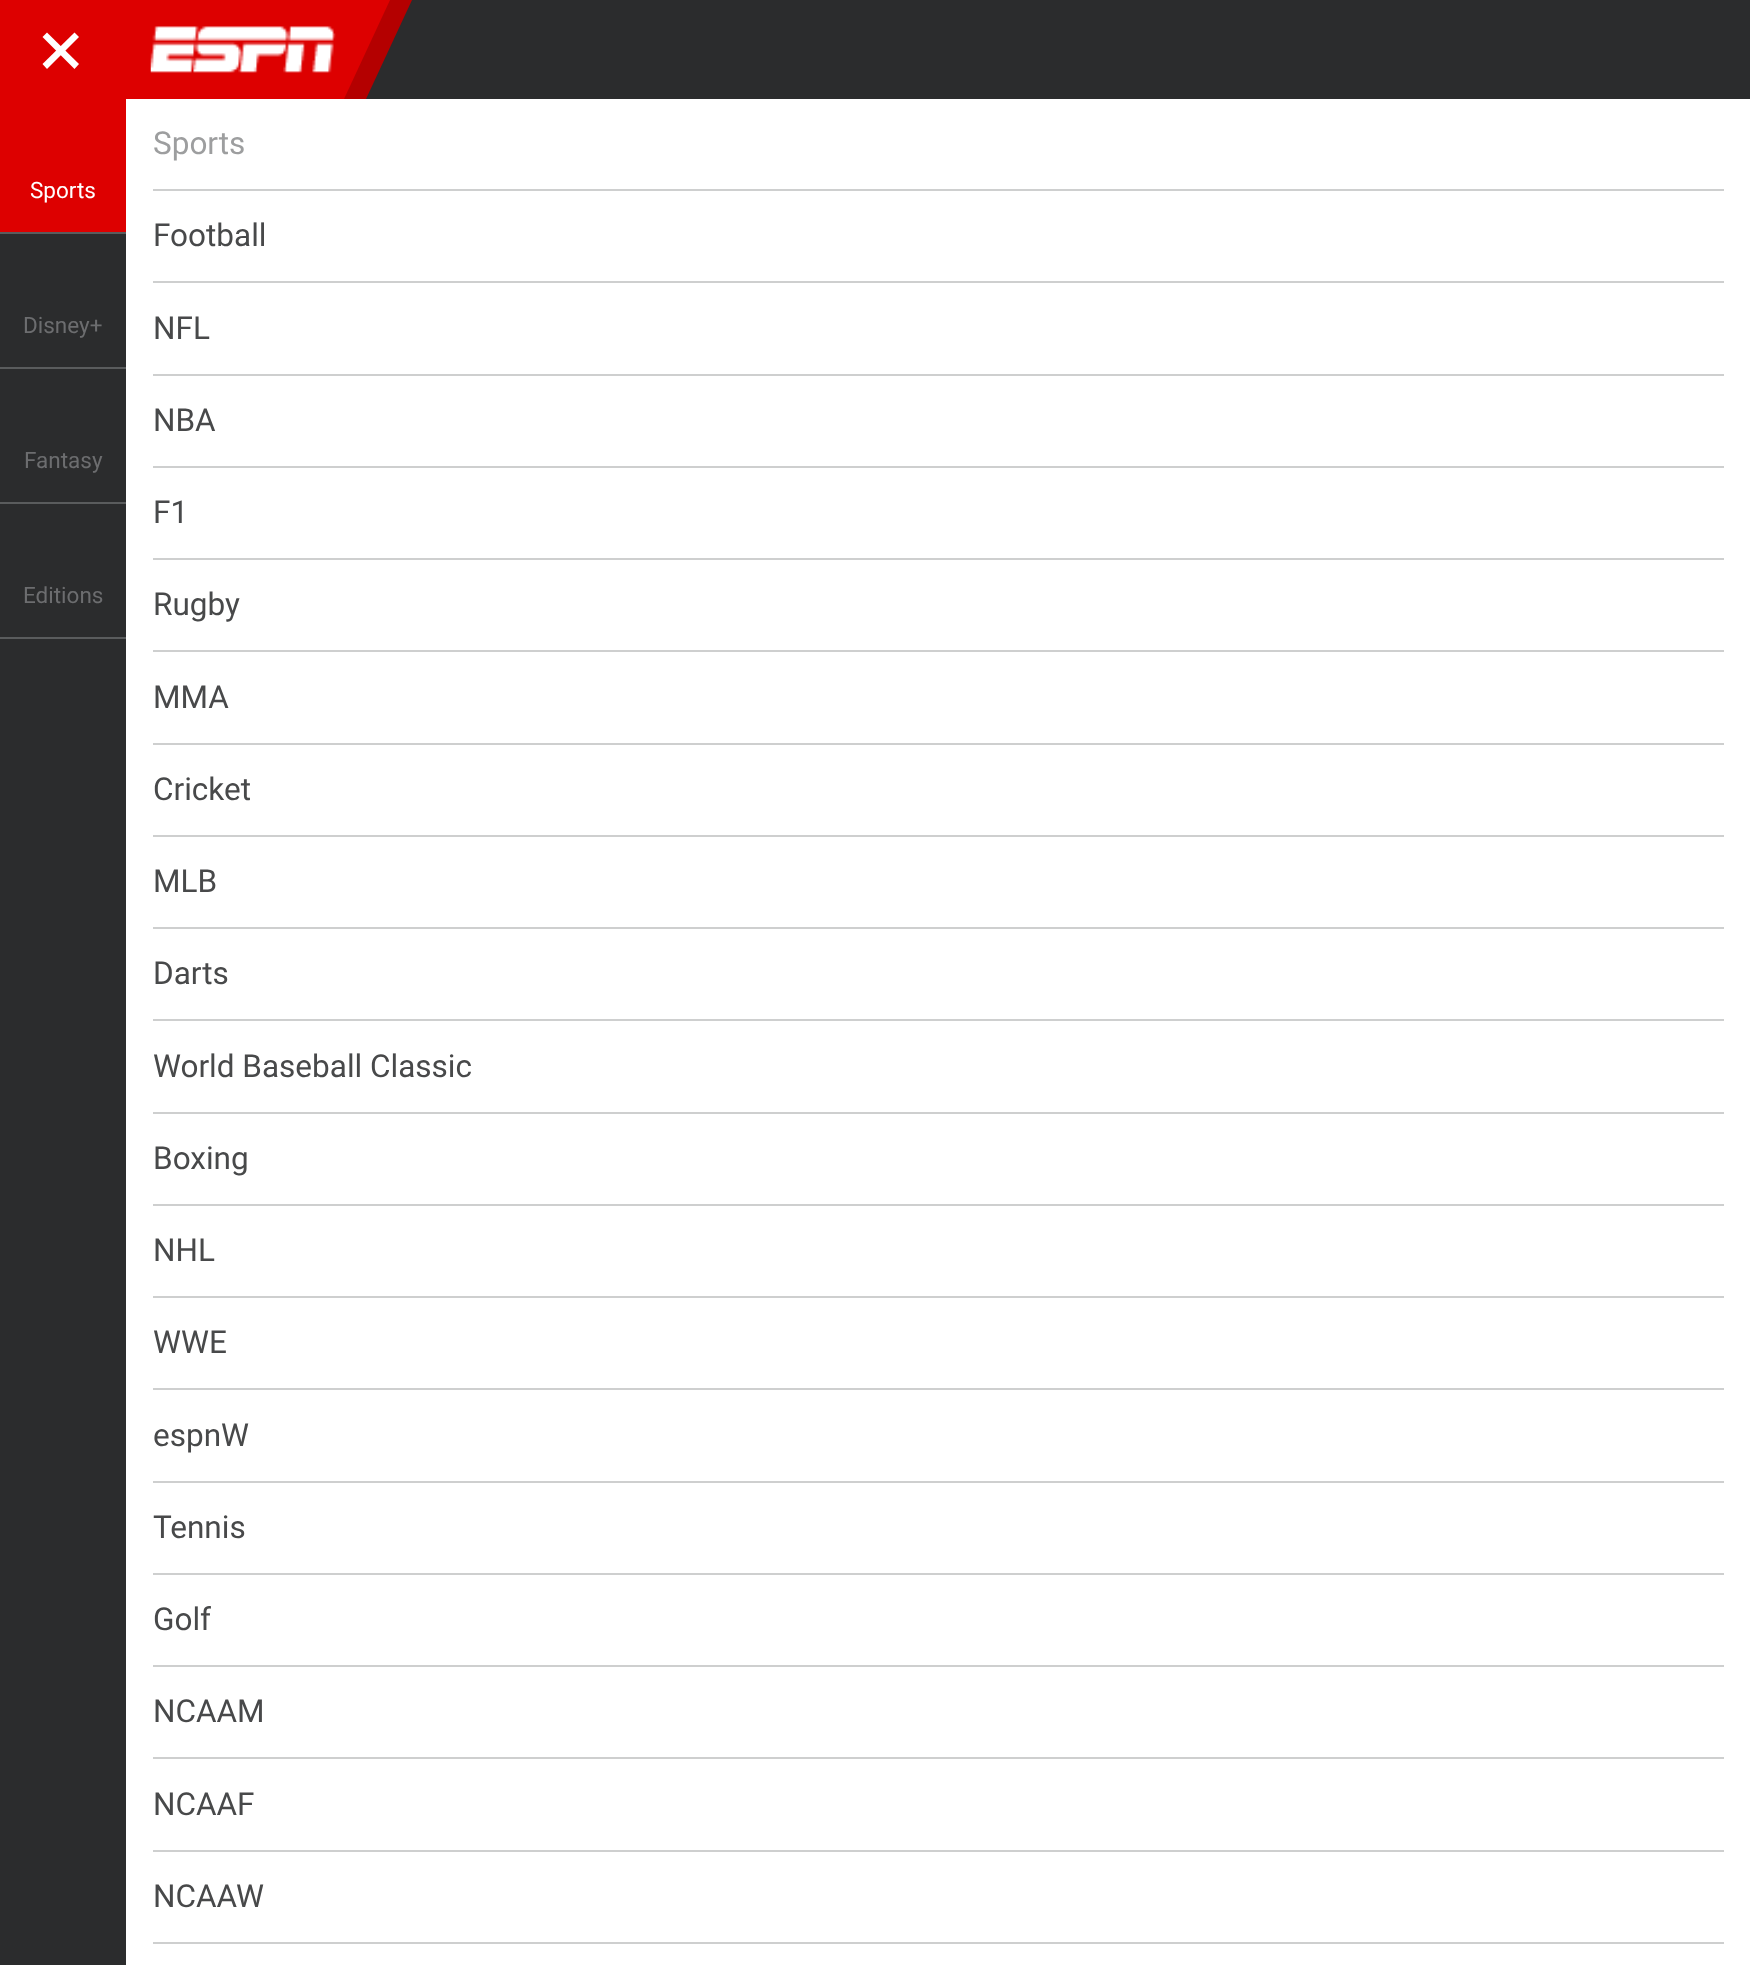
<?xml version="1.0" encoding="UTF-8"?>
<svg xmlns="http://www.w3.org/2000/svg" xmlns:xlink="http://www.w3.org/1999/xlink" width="1750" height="1965">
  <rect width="100%" height="100%" fill="#2b2c2d" />
  <path d="M 120 0 h 292 l -46 99 h -292 z" fill="#b40000" />
  <path d="M -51 0 h 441 l -46 99 h -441 z" fill="#dd0000" />
  <image x="150" y="26" width="186" height="47" xlink:href="image1.png" />
  <path d="M 47 32.5 l 32 31.5 l -4.5 5 l -32 -32 z" fill="#ffffff" />
  <path d="M 42.5 64 l 32 -31.5 l 4.5 4.5 l -32 32 z" fill="#ffffff" />
  <rect y="99" width="126" height="133" fill="#dd0000" />
  <rect y="232" width="126" height="2" fill="#5a5c5d" />
  <rect x="126" y="99" width="1624" height="1866" fill="#ffffff" />
  <rect x="153" y="189" width="1571" height="2" fill="#cecfcf" />
  <rect x="153" y="281" width="1571" height="2" fill="#cecfcf" />
  <rect x="153" y="374" width="1571" height="2" fill="#cecfcf" />
  <rect x="153" y="466" width="1571" height="2" fill="#cecfcf" />
  <rect x="153" y="558" width="1571" height="2" fill="#cecfcf" />
  <rect x="153" y="650" width="1571" height="2" fill="#cecfcf" />
  <rect x="153" y="743" width="1571" height="2" fill="#cecfcf" />
  <rect x="153" y="835" width="1571" height="2" fill="#cecfcf" />
  <rect x="153" y="927" width="1571" height="2" fill="#cecfcf" />
  <rect x="153" y="1019" width="1571" height="2" fill="#cecfcf" />
  <rect x="153" y="1112" width="1571" height="2" fill="#cecfcf" />
  <rect x="153" y="1204" width="1571" height="2" fill="#cecfcf" />
  <rect x="153" y="1296" width="1571" height="2" fill="#cecfcf" />
  <rect x="153" y="1388" width="1571" height="2" fill="#cecfcf" />
  <rect x="153" y="1481" width="1571" height="2" fill="#cecfcf" />
  <rect x="153" y="1573" width="1571" height="2" fill="#cecfcf" />
  <rect x="153" y="1665" width="1571" height="2" fill="#cecfcf" />
  <rect x="153" y="1757" width="1571" height="2" fill="#cecfcf" />
  <rect x="153" y="1850" width="1571" height="2" fill="#cecfcf" />
  <rect x="153" y="1942" width="1571" height="2" fill="#cecfcf" />
  <rect y="367" width="126" height="2" fill="#5a5c5d" />
  <rect y="502" width="126" height="2" fill="#5a5c5d" />
  <rect y="637" width="126" height="2" fill="#5a5c5d" />
  <text x="30" y="198" style="font-family: Roboto; font-size: 22.5px; fill: #ffffff">Sports</text>
  <text x="153" y="154" style="font-family: Roboto; font-size: 31.5px; fill: #9d9e9f">Sports</text>
  <text x="153" y="246" style="font-family: Roboto; font-size: 31.5px; fill: #48494a">Football</text>
  <text x="153" y="339" style="font-family: Roboto; font-size: 31.5px; fill: #48494a">NFL</text>
  <text x="153" y="431" style="font-family: Roboto; font-size: 31.5px; fill: #48494a">NBA</text>
  <text x="153" y="523" style="font-family: Roboto; font-size: 31.5px; fill: #48494a">F1</text>
  <text x="153" y="615" style="font-family: Roboto; font-size: 31.5px; fill: #48494a">Rugby</text>
  <text x="153" y="708" style="font-family: Roboto; font-size: 31.5px; fill: #48494a">MMA</text>
  <text x="153" y="800" style="font-family: Roboto; font-size: 31.5px; fill: #48494a">Cricket</text>
  <text x="153" y="892" style="font-family: Roboto; font-size: 31.5px; fill: #48494a">MLB</text>
  <text x="153" y="984" style="font-family: Roboto; font-size: 31.5px; fill: #48494a">Darts</text>
  <text x="153" y="1077" style="font-family: Roboto; font-size: 31.5px; fill: #48494a">World Baseball Classic</text>
  <text x="153" y="1169" style="font-family: Roboto; font-size: 31.5px; fill: #48494a">Boxing</text>
  <text x="153" y="1261" style="font-family: Roboto; font-size: 31.5px; fill: #48494a">NHL</text>
  <text x="153" y="1353" style="font-family: Roboto; font-size: 31.5px; fill: #48494a">WWE</text>
  <text x="153" y="1446" style="font-family: Roboto; font-size: 31.5px; fill: #48494a">espnW</text>
  <text x="153" y="1538" style="font-family: Roboto; font-size: 31.5px; fill: #48494a">Tennis</text>
  <text x="153" y="1630" style="font-family: Roboto; font-size: 31.5px; fill: #48494a">Golf</text>
  <text x="153" y="1722" style="font-family: Roboto; font-size: 31.5px; fill: #48494a">NCAAM</text>
  <text x="153" y="1815" style="font-family: Roboto; font-size: 31.5px; fill: #48494a">NCAAF</text>
  <text x="153" y="1907" style="font-family: Roboto; font-size: 31.5px; fill: #48494a">NCAAW</text>
  <text x="23" y="333" style="font-family: Roboto; font-size: 22.5px; fill: #6c6d6f">Disney+</text>
  <text x="24" y="468" style="font-family: Roboto; font-size: 22.5px; fill: #6c6d6f">Fantasy</text>
  <text x="23" y="603" style="font-family: Roboto; font-size: 22.5px; fill: #6c6d6f">Editions</text>
</svg>
